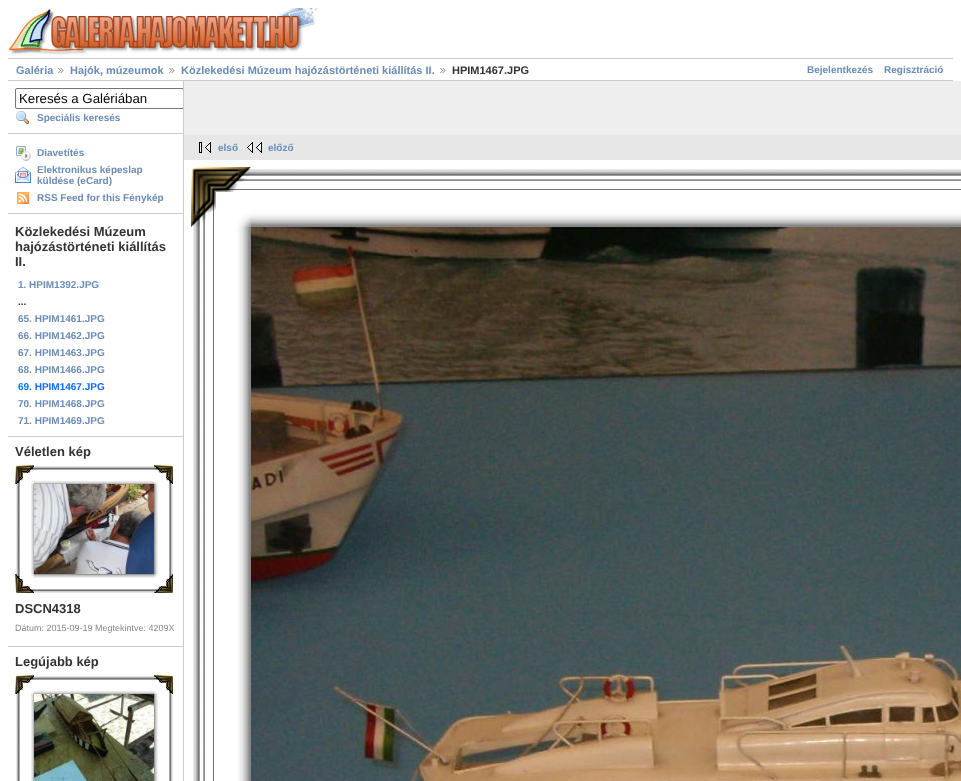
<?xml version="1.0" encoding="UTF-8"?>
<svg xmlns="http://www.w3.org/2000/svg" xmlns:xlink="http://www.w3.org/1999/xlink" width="961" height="781">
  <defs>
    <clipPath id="clip1"><rect x="8" y="81" width="175" height="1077" /></clipPath>
  </defs>
  <rect width="100%" height="100%" fill="#ffffff" />
  <image x="9" y="8" width="309" height="48" xlink:href="image1.png" />
  <rect x="8" y="58" width="945" height="1" fill="#cccccc" />
  <rect x="8" y="80" width="945" height="1" fill="#cccccc" />
  <image x="58" y="68" width="6" height="5" xlink:href="image2.png" />
  <image x="169" y="68" width="6" height="5" xlink:href="image2.png" />
  <image x="440" y="68" width="6" height="5" xlink:href="image2.png" />
  <rect x="183" y="81" width="1" height="700" fill="#cccccc" />
  <rect x="8" y="133" width="175" height="1" fill="#cccccc" />
  <g clip-path="url(#clip1)">
    <rect x="15.5" y="88.5" width="168" height="20" rx="1.5" fill="none" stroke="#767676" />
  </g>
  <image x="16" y="111" width="13" height="14" xlink:href="image3.png" />
  <rect x="8" y="213" width="175" height="1" fill="#cccccc" />
  <image x="16" y="146" width="15" height="15" xlink:href="image4.png" />
  <image x="15" y="167" width="16" height="16" xlink:href="image5.png" />
  <image x="17" y="192" width="12" height="12" xlink:href="image6.png" />
  <rect x="8" y="436" width="175" height="1" fill="#cccccc" />
  <rect x="8" y="646" width="175" height="1" fill="#cccccc" />
  <image x="15" y="465" width="19" height="19" xlink:href="image7.png" />
  <image x="34" y="466" width="120" height="18" xlink:href="image8.png" />
  <image x="154" y="465" width="19" height="19" xlink:href="image9.png" />
  <image x="16" y="484" width="18" height="90" xlink:href="image10.png" />
  <image x="34" y="484" width="120" height="90" xlink:href="image11.png" />
  <image x="154" y="484" width="19" height="90" xlink:href="image12.png" />
  <image x="15" y="574" width="19" height="19" xlink:href="image13.png" />
  <image x="34" y="574" width="120" height="19" xlink:href="image14.png" />
  <image x="154" y="574" width="19" height="19" xlink:href="image15.png" />
  <image x="15" y="675" width="19" height="19" xlink:href="image7.png" />
  <image x="34" y="676" width="120" height="18" xlink:href="image8.png" />
  <image x="154" y="675" width="19" height="19" xlink:href="image9.png" />
  <image x="16" y="694" width="18" height="87" xlink:href="image16.png" />
  <image x="34" y="694" width="120" height="87" xlink:href="image17.png" />
  <image x="154" y="694" width="19" height="87" xlink:href="image18.png" />
  <rect x="184" y="81" width="777" height="54" fill="#eeeeee" />
  <rect x="184" y="135" width="777" height="25" fill="#e7e7e7" />
  <image x="199" y="142" width="12" height="11" xlink:href="image19.png" />
  <image x="247" y="142" width="15" height="11" xlink:href="image20.png" />
  <image x="191" y="167" width="60" height="60" xlink:href="image21.png" />
  <image x="251" y="169" width="710" height="58" xlink:href="image22.png" />
  <image x="193" y="227" width="58" height="554" xlink:href="image23.png" />
  <image x="251" y="227" width="710" height="554" xlink:href="image24.png" />
  <text x="16" y="74" style="font-family: Liberation Sans; font-size: 11px; font-weight: bold; fill: #6b8cb7">Galéria</text>
  <text x="70" y="74" style="font-family: Liberation Sans; font-size: 11px; font-weight: bold; fill: #6b8cb7">Hajók, múzeumok</text>
  <text x="181" y="74" style="font-family: Liberation Sans; font-size: 11px; font-weight: bold; fill: #6b8cb7">Közlekedési Múzeum hajózástörténeti kiállítás II.</text>
  <text x="452" y="74" style="font-family: Liberation Sans; font-size: 11px; font-weight: bold; fill: #333333">HPIM1467.JPG</text>
  <text x="807" y="73" style="font-family: Liberation Sans; font-size: 10px; font-weight: bold; fill: #6b8cb7">Bejelentkezés</text>
  <text x="884" y="73" style="font-family: Liberation Sans; font-size: 10px; font-weight: bold; fill: #6b8cb7">Regisztráció</text>
  <text x="19" y="103" style="font-family: Liberation Sans; font-size: 13.25px; fill: #000000">Keresés a Galériában</text>
  <text x="37" y="121" style="font-family: Liberation Sans; font-size: 10px; font-weight: bold; fill: #6b8cb7">Speciális keresés</text>
  <text x="37" y="156" style="font-family: Liberation Sans; font-size: 10px; font-weight: bold; fill: #6b8cb7">Diavetítés</text>
  <text x="37" y="173" style="font-family: Liberation Sans; font-size: 10px; font-weight: bold; fill: #6b8cb7">Elektronikus képeslap</text>
  <text x="37" y="184" style="font-family: Liberation Sans; font-size: 10px; font-weight: bold; fill: #6b8cb7">küldése (eCard)</text>
  <text x="37" y="201" style="font-family: Liberation Sans; font-size: 10px; font-weight: bold; fill: #6b8cb7">RSS Feed for this Fénykép</text>
  <text x="15" y="236" style="font-family: Liberation Sans; font-size: 13px; font-weight: bold; fill: #333333">Közlekedési Múzeum</text>
  <text x="15" y="251" style="font-family: Liberation Sans; font-size: 13px; font-weight: bold; fill: #333333">hajózástörténeti kiállítás</text>
  <text x="15" y="266" style="font-family: Liberation Sans; font-size: 13px; font-weight: bold; fill: #333333">II.</text>
  <text x="18" y="288" style="font-family: Liberation Sans; font-size: 10px; font-weight: bold; fill: #6b8cb7">1. HPIM1392.JPG</text>
  <text x="18" y="305" style="font-family: Liberation Sans; font-size: 10px; font-weight: bold; fill: #333333">...</text>
  <text x="18" y="322" style="font-family: Liberation Sans; font-size: 10px; font-weight: bold; fill: #6b8cb7">65. HPIM1461.JPG</text>
  <text x="18" y="339" style="font-family: Liberation Sans; font-size: 10px; font-weight: bold; fill: #6b8cb7">66. HPIM1462.JPG</text>
  <text x="18" y="356" style="font-family: Liberation Sans; font-size: 10px; font-weight: bold; fill: #6b8cb7">67. HPIM1463.JPG</text>
  <text x="18" y="373" style="font-family: Liberation Sans; font-size: 10px; font-weight: bold; fill: #6b8cb7">68. HPIM1466.JPG</text>
  <text x="18" y="390" style="font-family: Liberation Sans; font-size: 10px; font-weight: bold; fill: #0b6cff">69. HPIM1467.JPG</text>
  <text x="18" y="407" style="font-family: Liberation Sans; font-size: 10px; font-weight: bold; fill: #6b8cb7">70. HPIM1468.JPG</text>
  <text x="18" y="424" style="font-family: Liberation Sans; font-size: 10px; font-weight: bold; fill: #6b8cb7">71. HPIM1469.JPG</text>
  <text x="15" y="456" style="font-family: Liberation Sans; font-size: 13px; font-weight: bold; fill: #333333">Véletlen kép</text>
  <text x="15" y="613" style="font-family: Liberation Sans; font-size: 13px; font-weight: bold; fill: #333333">DSCN4318</text>
  <text x="15" y="631" style="font-family: Liberation Sans; font-size: 9px; fill: #888888">Dátum: 2015-09-19 Megtekintve: 4209X</text>
  <text x="15" y="666" style="font-family: Liberation Sans; font-size: 13px; font-weight: bold; fill: #333333">Legújabb kép</text>
  <text x="218" y="151" style="font-family: Liberation Sans; font-size: 10px; font-weight: bold; fill: #6b8cb7">első</text>
  <text x="268" y="151" style="font-family: Liberation Sans; font-size: 10px; font-weight: bold; fill: #6b8cb7">előző</text>
</svg>
